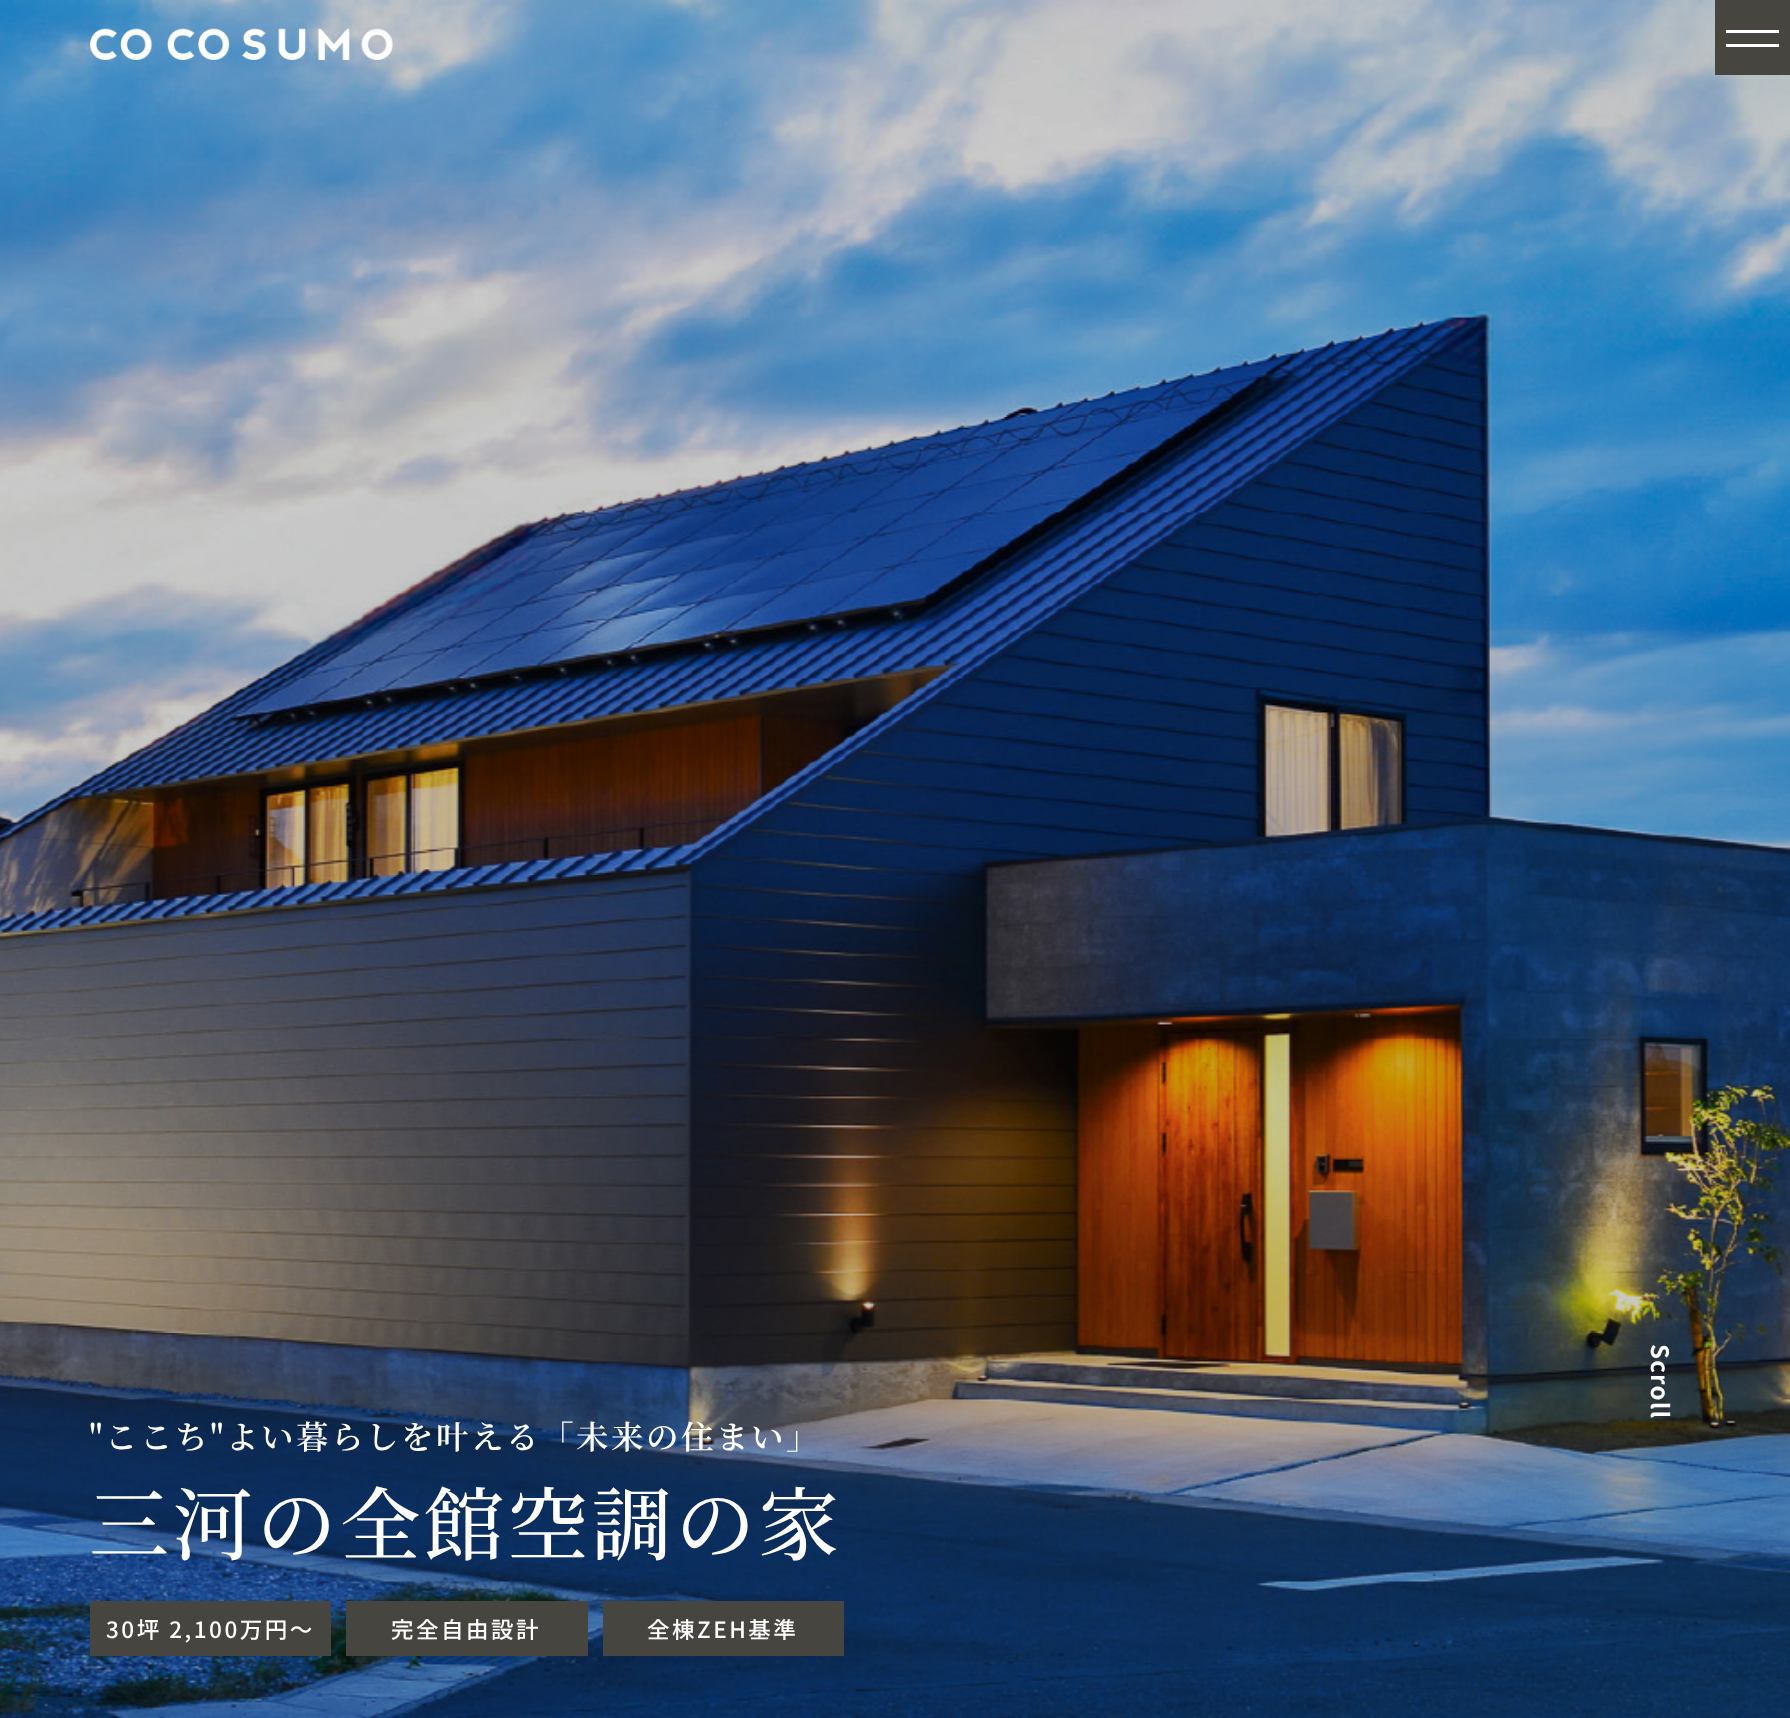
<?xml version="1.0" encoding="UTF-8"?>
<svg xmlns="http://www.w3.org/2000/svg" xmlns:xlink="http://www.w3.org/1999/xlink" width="1790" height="1718">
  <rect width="100%" height="100%" fill="#ffffff" />
  <image x="0" y="0" width="1790" height="1718" xlink:href="image1.png" />
  <image x="90" y="28" width="303" height="32" xlink:href="image2.png" />
  <rect x="1715" width="75" height="75" fill="#464540" />
  <rect x="1726" y="30" width="53" height="3" fill="#ffffff" />
  <rect x="1726" y="44" width="53" height="3" fill="#ffffff" />
  <rect x="90" y="1601" width="241" height="55" fill="#464540" />
  <rect x="346" y="1601" width="242" height="55" fill="#464540" />
  <rect x="603" y="1601" width="241" height="55" fill="#464540" />
  <text x="1651" y="1344" transform="rotate(90 1651 1344)" style="font-family: Noto Sans JP; font-size: 24px; font-weight: bold; letter-spacing: 1.25px; fill: #ffffff">Scroll</text>
  <text x="89" y="1449" style="font-family: Noto Serif JP; font-size: 32.5px; font-weight: 600; letter-spacing: 2.5px; fill: #ffffff">"ここち"よい暮らしを叶える「未来の住まい」</text>
  <text x="89" y="1554" style="font-family: Noto Serif JP; font-size: 80px; font-weight: 500; letter-spacing: 3.75px; fill: #ffffff">三河の全館空調の家</text>
  <text x="106" y="1638" style="font-family: Noto Sans JP; font-size: 22.5px; font-weight: 500; letter-spacing: 2.5px; fill: #ffffff">30坪 2,100万円〜</text>
  <text x="391" y="1638" style="font-family: Noto Sans JP; font-size: 22.5px; font-weight: 500; letter-spacing: 2.5px; fill: #ffffff">完全自由設計</text>
  <text x="647" y="1638" style="font-family: Noto Sans JP; font-size: 22.5px; font-weight: 500; letter-spacing: 2.5px; fill: #ffffff">全棟ZEH基準</text>
</svg>
